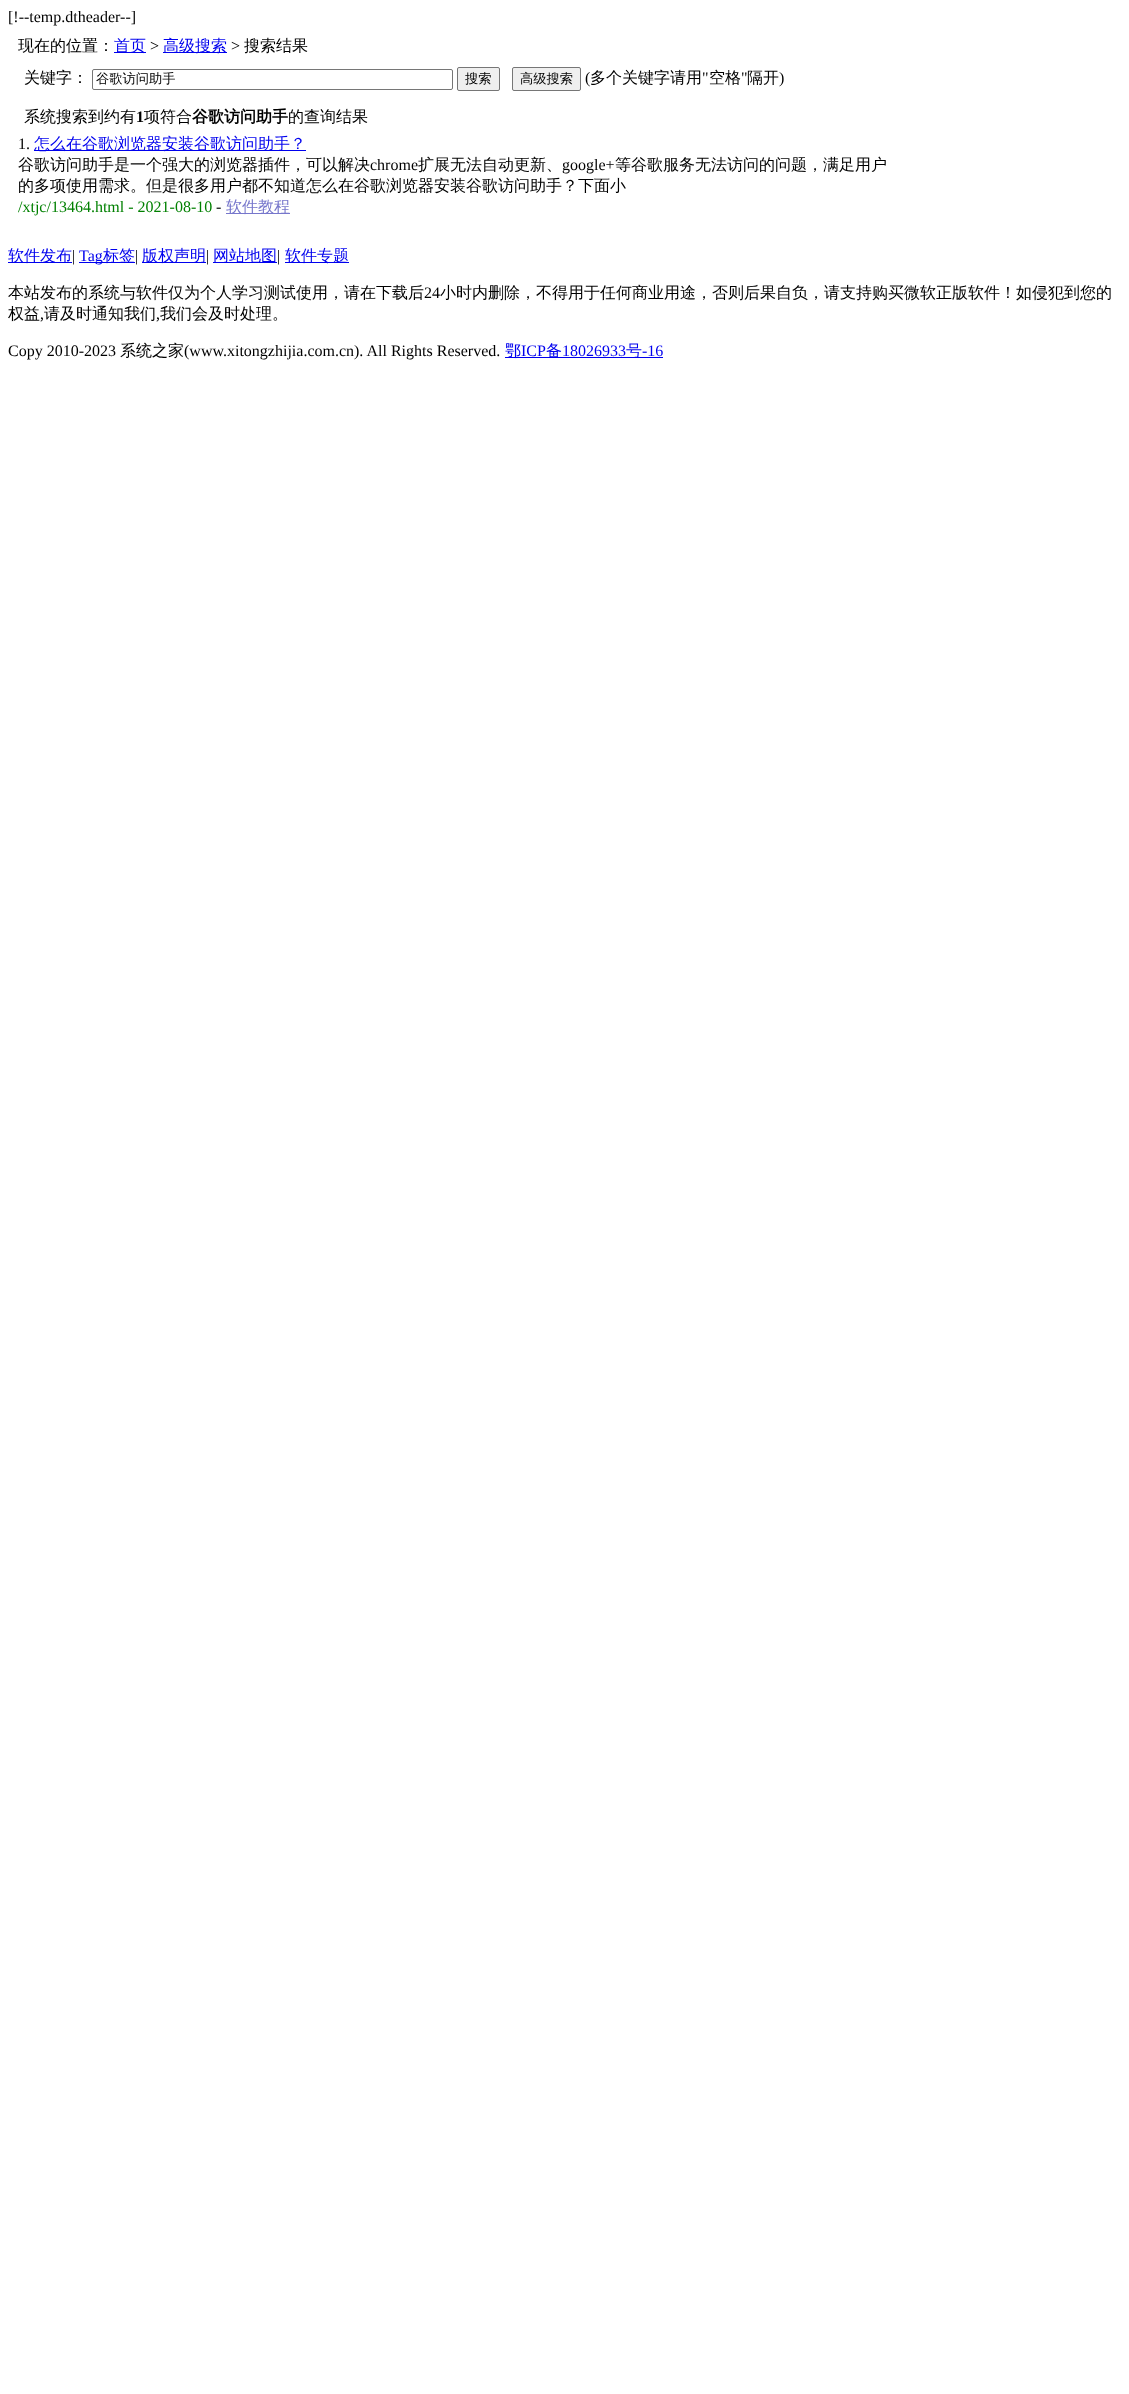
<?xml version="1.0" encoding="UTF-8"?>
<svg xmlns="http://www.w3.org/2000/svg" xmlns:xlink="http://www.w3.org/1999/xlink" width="1129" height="2394">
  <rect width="100%" height="100%" fill="#ffffff" />
  <rect x="114" y="52" width="32" height="1" fill="#0000ee" />
  <rect x="163" y="52" width="64" height="1" fill="#0000ee" />
  <rect x="92.5" y="69.5" width="360" height="20" rx="1.5" fill="none" stroke="#767676" />
  <rect x="457.5" y="67.5" width="42" height="23" rx="1.5" fill="#efefef" stroke="#767676" />
  <rect x="512.5" y="67.5" width="68" height="23" rx="1.5" fill="#efefef" stroke="#767676" />
  <rect x="34" y="150" width="272" height="1" fill="#0000ee" />
  <rect x="226" y="213" width="64" height="1" fill="#7777cc" />
  <rect x="8" y="262" width="64" height="1" fill="#0000ee" />
  <rect x="79" y="262" width="56" height="1" fill="#0000ee" />
  <rect x="142" y="262" width="64" height="1" fill="#0000ee" />
  <rect x="213" y="262" width="64" height="1" fill="#0000ee" />
  <rect x="285" y="262" width="64" height="1" fill="#0000ee" />
  <rect x="505" y="357" width="158" height="1" fill="#0000ee" />
  <text x="8" y="22" style="font-family: Liberation Serif; font-size: 16px; fill: #000000">[!--temp.dtheader--]</text>
  <text x="18" y="51" style="font-family: WenQuanYi Zen Hei; font-size: 16px; font-weight: 500; fill: #000000">现在的位置：</text>
  <text x="114" y="51" style="font-family: WenQuanYi Zen Hei; font-size: 16px; font-weight: 500; fill: #0000ee">首页</text>
  <text x="150" y="51" style="font-family: Liberation Serif; font-size: 16px; fill: #000000">&gt;</text>
  <text x="163" y="51" style="font-family: WenQuanYi Zen Hei; font-size: 16px; font-weight: 500; fill: #0000ee">高级搜索</text>
  <text x="231" y="51" style="font-family: Liberation Serif; font-size: 16px; fill: #000000">&gt;</text>
  <text x="244" y="51" style="font-family: WenQuanYi Zen Hei; font-size: 16px; font-weight: 500; fill: #000000">搜索结果</text>
  <text x="24" y="83" style="font-family: WenQuanYi Zen Hei; font-size: 16px; font-weight: 500; fill: #000000">关键字：</text>
  <text x="96" y="83" style="font-family: WenQuanYi Zen Hei; font-size: 13.25px; font-weight: 500; fill: #000000">谷歌访问助手</text>
  <text x="465" y="83" style="font-family: WenQuanYi Zen Hei; font-size: 13.25px; font-weight: 500; fill: #000000">搜索</text>
  <text x="520" y="83" style="font-family: WenQuanYi Zen Hei; font-size: 13.25px; font-weight: 500; fill: #000000">高级搜索</text>
  <text x="585" y="83" style="font-family: Liberation Serif; font-size: 16px; fill: #000000">(</text>
  <text x="590" y="83" style="font-family: WenQuanYi Zen Hei; font-size: 16px; font-weight: 500; fill: #000000">多个关键字请用</text>
  <text x="702" y="83" style="font-family: Liberation Serif; font-size: 16px; fill: #000000">"</text>
  <text x="709" y="83" style="font-family: WenQuanYi Zen Hei; font-size: 16px; font-weight: 500; fill: #000000">空格</text>
  <text x="741" y="83" style="font-family: Liberation Serif; font-size: 16px; fill: #000000">"</text>
  <text x="747" y="83" style="font-family: WenQuanYi Zen Hei; font-size: 16px; font-weight: 500; fill: #000000">隔开</text>
  <text x="779" y="83" style="font-family: Liberation Serif; font-size: 16px; fill: #000000">)</text>
  <text x="24" y="122" style="font-family: WenQuanYi Zen Hei; font-size: 16px; font-weight: 500; fill: #000000">系统搜索到约有</text>
  <text x="136" y="122" style="font-family: Liberation Serif; font-size: 16px; font-weight: bold; fill: #000000">1</text>
  <text x="144" y="122" style="font-family: WenQuanYi Zen Hei; font-size: 16px; font-weight: 500; fill: #000000">项符合</text>
  <text x="192" y="122" style="font-family: WenQuanYi Zen Hei; font-size: 16px; font-weight: bold; fill: #000000">谷歌访问助手</text>
  <text x="288" y="122" style="font-family: WenQuanYi Zen Hei; font-size: 16px; font-weight: 500; fill: #000000">的查询结果</text>
  <text x="18" y="149" style="font-family: Liberation Serif; font-size: 16px; fill: #000000">1.</text>
  <text x="34" y="149" style="font-family: WenQuanYi Zen Hei; font-size: 16px; font-weight: 500; fill: #0000ee">怎么在谷歌浏览器安装谷歌访问助手？</text>
  <text x="18" y="170" style="font-family: WenQuanYi Zen Hei; font-size: 16px; font-weight: 500; fill: #000000">谷歌访问助手是一个强大的浏览器插件，可以解决</text>
  <text x="370" y="170" style="font-family: Liberation Serif; font-size: 16px; fill: #000000">chrome</text>
  <text x="418" y="170" style="font-family: WenQuanYi Zen Hei; font-size: 16px; font-weight: 500; fill: #000000">扩展无法自动更新、</text>
  <text x="562" y="170" style="font-family: Liberation Serif; font-size: 16px; fill: #000000">google+</text>
  <text x="615" y="170" style="font-family: WenQuanYi Zen Hei; font-size: 16px; font-weight: 500; fill: #000000">等谷歌服务无法访问的问题，满足用户</text>
  <text x="18" y="191" style="font-family: WenQuanYi Zen Hei; font-size: 16px; font-weight: 500; fill: #000000">的多项使用需求。但是很多用户都不知道怎么在谷歌浏览器安装谷歌访问助手？下面小</text>
  <text x="18" y="212" style="font-family: Liberation Serif; font-size: 16px; fill: #008000">/xtjc/13464.html - 2021-08-10</text>
  <text x="216" y="212" style="font-family: Liberation Serif; font-size: 16px; fill: #000000">-</text>
  <text x="226" y="212" style="font-family: WenQuanYi Zen Hei; font-size: 16px; font-weight: 500; fill: #7777cc">软件教程</text>
  <text x="8" y="261" style="font-family: WenQuanYi Zen Hei; font-size: 16px; font-weight: 500; fill: #0000ee">软件发布</text>
  <text x="72" y="261" style="font-family: Liberation Serif; font-size: 16px; fill: #000000">|</text>
  <text x="79" y="261" style="font-family: Liberation Serif; font-size: 16px; fill: #0000ee">Tag</text>
  <text x="103" y="261" style="font-family: WenQuanYi Zen Hei; font-size: 16px; font-weight: 500; fill: #0000ee">标签</text>
  <text x="135" y="261" style="font-family: Liberation Serif; font-size: 16px; fill: #000000">|</text>
  <text x="142" y="261" style="font-family: WenQuanYi Zen Hei; font-size: 16px; font-weight: 500; fill: #0000ee">版权声明</text>
  <text x="206" y="261" style="font-family: Liberation Serif; font-size: 16px; fill: #000000">|</text>
  <text x="213" y="261" style="font-family: WenQuanYi Zen Hei; font-size: 16px; font-weight: 500; fill: #0000ee">网站地图</text>
  <text x="277" y="261" style="font-family: Liberation Serif; font-size: 16px; fill: #000000">|</text>
  <text x="285" y="261" style="font-family: WenQuanYi Zen Hei; font-size: 16px; font-weight: 500; fill: #0000ee">软件专题</text>
  <text x="8" y="298" style="font-family: WenQuanYi Zen Hei; font-size: 16px; font-weight: 500; fill: #000000">本站发布的系统与软件仅为个人学习测试使用，请在下载后</text>
  <text x="424" y="298" style="font-family: Liberation Serif; font-size: 16px; fill: #000000">24</text>
  <text x="440" y="298" style="font-family: WenQuanYi Zen Hei; font-size: 16px; font-weight: 500; fill: #000000">小时内删除，不得用于任何商业用途，否则后果自负，请支持购买微软正版软件！如侵犯到您的</text>
  <text x="8" y="319" style="font-family: WenQuanYi Zen Hei; font-size: 16px; font-weight: 500; fill: #000000">权益</text>
  <text x="40" y="319" style="font-family: Liberation Serif; font-size: 16px; fill: #000000">,</text>
  <text x="44" y="319" style="font-family: WenQuanYi Zen Hei; font-size: 16px; font-weight: 500; fill: #000000">请及时通知我们</text>
  <text x="156" y="319" style="font-family: Liberation Serif; font-size: 16px; fill: #000000">,</text>
  <text x="160" y="319" style="font-family: WenQuanYi Zen Hei; font-size: 16px; font-weight: 500; fill: #000000">我们会及时处理。</text>
  <text x="8" y="356" style="font-family: Liberation Serif; font-size: 16px; fill: #000000">Copy 2010-2023</text>
  <text x="120" y="356" style="font-family: WenQuanYi Zen Hei; font-size: 16px; font-weight: 500; fill: #000000">系统之家</text>
  <text x="184" y="356" style="font-family: Liberation Serif; font-size: 16px; fill: #000000">(www.xitongzhijia.com.cn). All Rights Reserved.</text>
  <text x="505" y="356" style="font-family: WenQuanYi Zen Hei; font-size: 16px; font-weight: 500; fill: #0000ee">鄂</text>
  <text x="521" y="356" style="font-family: Liberation Serif; font-size: 16px; fill: #0000ee">ICP</text>
  <text x="546" y="356" style="font-family: WenQuanYi Zen Hei; font-size: 16px; font-weight: 500; fill: #0000ee">备</text>
  <text x="562" y="356" style="font-family: Liberation Serif; font-size: 16px; fill: #0000ee">18026933</text>
  <text x="626" y="356" style="font-family: WenQuanYi Zen Hei; font-size: 16px; font-weight: 500; fill: #0000ee">号</text>
  <text x="642" y="356" style="font-family: Liberation Serif; font-size: 16px; fill: #0000ee">-16</text>
</svg>
